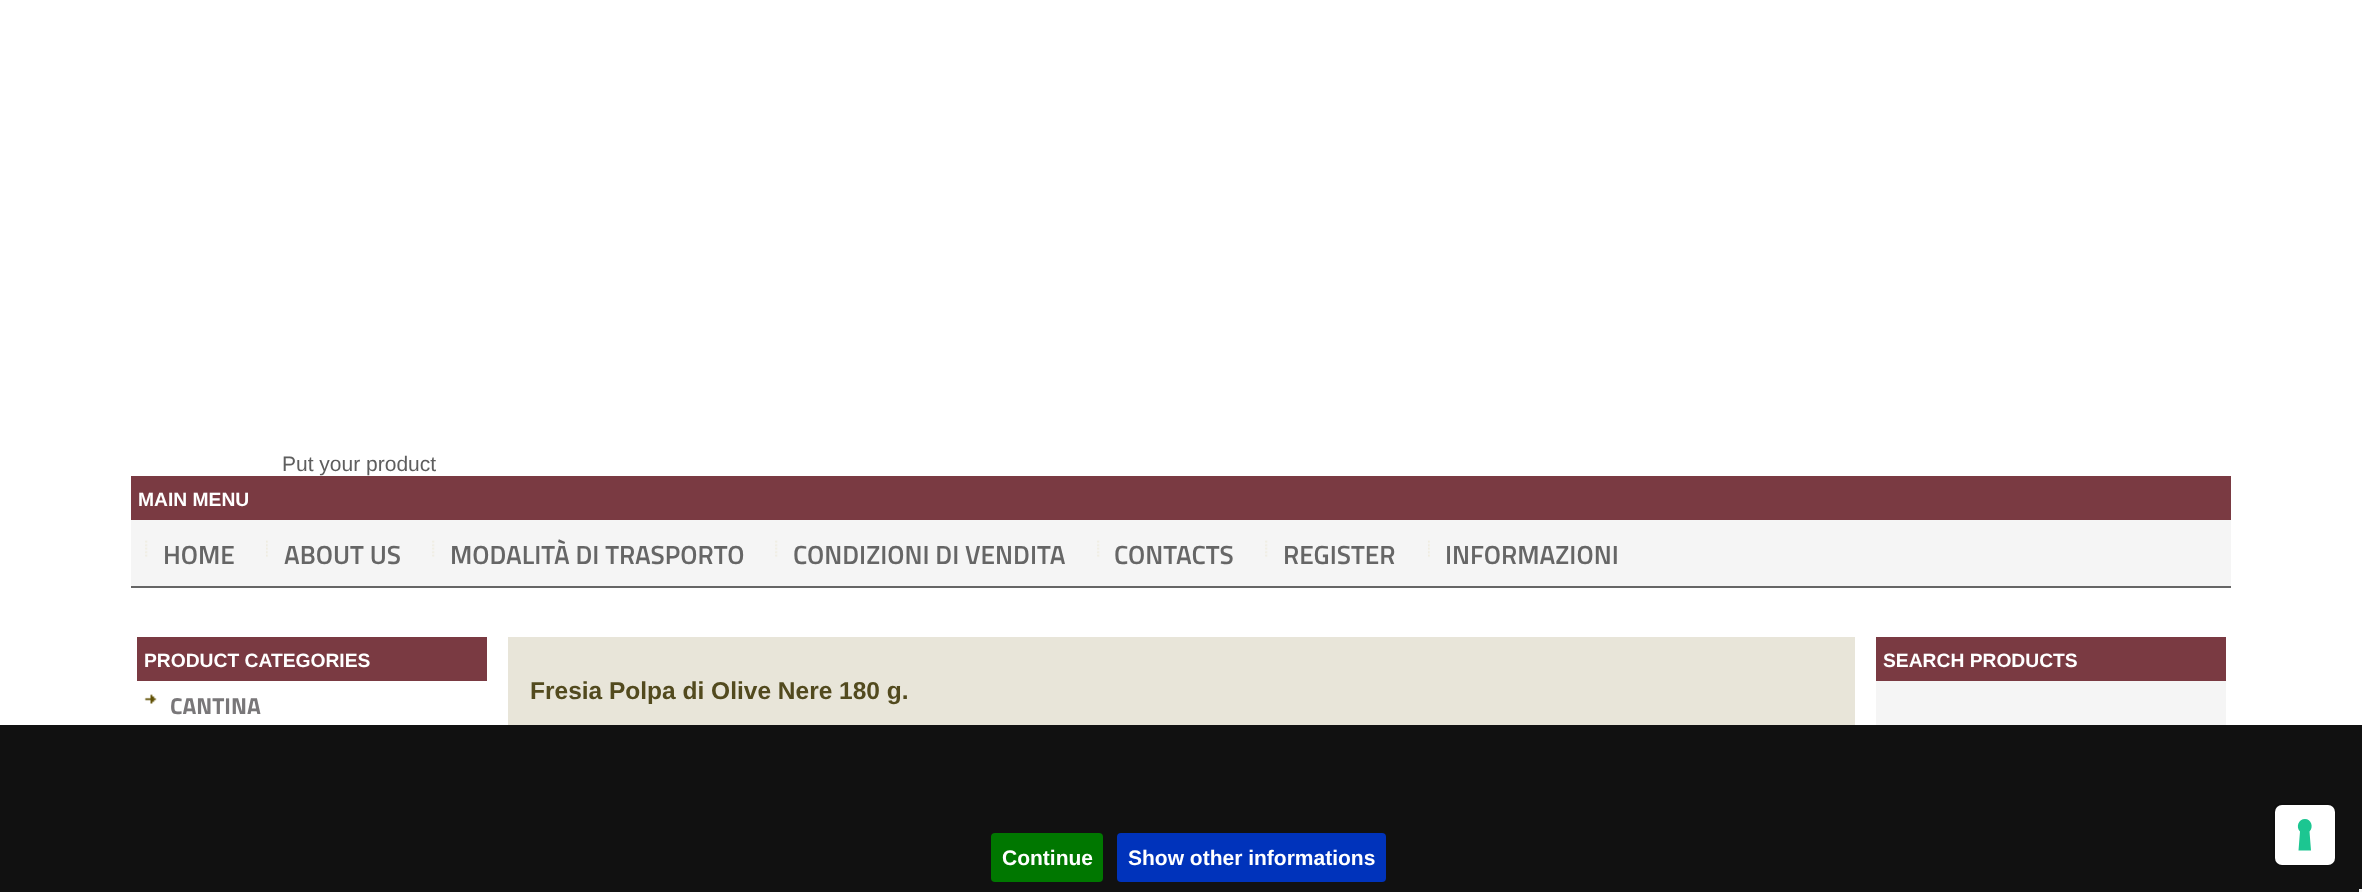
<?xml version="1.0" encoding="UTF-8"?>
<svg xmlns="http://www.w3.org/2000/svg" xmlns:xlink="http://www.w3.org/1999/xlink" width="2362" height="892">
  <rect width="100%" height="100%" fill="#ffffff" />
  <rect x="131" y="476" width="2100" height="44" fill="#7a3a42" />
  <rect x="131" y="520" width="2100" height="66" fill="#f5f5f5" />
  <rect x="131" y="586" width="2100" height="2" fill="#666666" />
  <image x="145" y="540" width="3" height="17" xlink:href="image1.png" />
  <image x="266" y="540" width="2" height="17" xlink:href="image2.png" />
  <image x="432" y="540" width="3" height="17" xlink:href="image1.png" />
  <image x="775" y="540" width="3" height="17" xlink:href="image1.png" />
  <image x="1097" y="540" width="3" height="17" xlink:href="image1.png" />
  <image x="1265" y="540" width="3" height="17" xlink:href="image1.png" />
  <image x="1428" y="540" width="2" height="17" xlink:href="image2.png" />
  <rect x="137" y="637" width="350" height="44" fill="#7a3a42" />
  <image x="144" y="694" width="13" height="10" xlink:href="image3.png" />
  <rect x="1876" y="637" width="350" height="44" fill="#7a3a42" />
  <rect x="1876" y="681" width="350" height="44" fill="#f5f5f5" />
  <rect x="508" y="637" width="1347" height="88" fill="#e8e5d9" />
  <rect y="725" width="2362" height="167" fill="#111111" />
  <rect x="991" y="833" width="112" height="49" rx="4" fill="#007700" />
  <rect x="1117" y="833" width="269" height="49" rx="4" fill="#0033bb" />
  <rect x="2274" y="804" width="61" height="61" rx="8" fill="none" stroke="#0e0e0e" stroke-width="2" />
  <rect x="2275" y="805" width="60" height="60" rx="7" fill="#ffffff" />
  <path d="M 2305 819 c 6 0 9 8 4.5 12.5 l 1.5 19 h -12.5 l 1.5 -19 c -4.5 -4.5 -1.5 -12.5 5 -12.5 z" fill="#1cc691" fill-rule="evenodd" />
  <rect x="2359" y="889" width="3" height="3" fill="#f5f5f5" />
  <text x="282" y="471" style="font-family: Liberation Sans; font-size: 21px; fill: #5e5e5e">Put your product</text>
  <text x="138" y="506" style="font-family: Liberation Sans; font-size: 19.25px; font-weight: bold; fill: #ffffff">MAIN MENU</text>
  <text x="163" y="564" style="font-family: Titillium Web; font-size: 26.25px; font-weight: 600; fill: #666666">HOME</text>
  <text x="284" y="564" style="font-family: Titillium Web; font-size: 26.25px; font-weight: 600; fill: #666666">ABOUT US</text>
  <text x="450" y="564" style="font-family: Titillium Web; font-size: 26.25px; font-weight: 600; fill: #666666">MODALITÀ DI TRASPORTO</text>
  <text x="793" y="564" style="font-family: Titillium Web; font-size: 26.25px; font-weight: 600; fill: #666666">CONDIZIONI DI VENDITA</text>
  <text x="1114" y="564" style="font-family: Titillium Web; font-size: 26.25px; font-weight: 600; fill: #666666">CONTACTS</text>
  <text x="1283" y="564" style="font-family: Titillium Web; font-size: 26.25px; font-weight: 600; fill: #666666">REGISTER</text>
  <text x="1445" y="564" style="font-family: Titillium Web; font-size: 26.25px; font-weight: 600; fill: #666666">INFORMAZIONI</text>
  <text x="144" y="667" style="font-family: Liberation Sans; font-size: 19.25px; font-weight: bold; fill: #ffffff">PRODUCT CATEGORIES</text>
  <text x="170" y="714" style="font-family: Titillium Web; font-size: 23px; font-weight: bold; fill: #797779">CANTINA</text>
  <text x="1883" y="667" style="font-family: Liberation Sans; font-size: 19.25px; font-weight: bold; fill: #ffffff">SEARCH PRODUCTS</text>
  <text x="530" y="699" style="font-family: Liberation Sans; font-size: 24.5px; font-weight: bold; fill: #524a1e">Fresia Polpa di Olive Nere 180 g.</text>
  <text x="1002" y="865" style="font-family: Liberation Sans; font-size: 21px; font-weight: bold; fill: #ffffff">Continue</text>
  <text x="1128" y="865" style="font-family: Liberation Sans; font-size: 21px; font-weight: bold; fill: #ffffff">Show other informations</text>
</svg>
